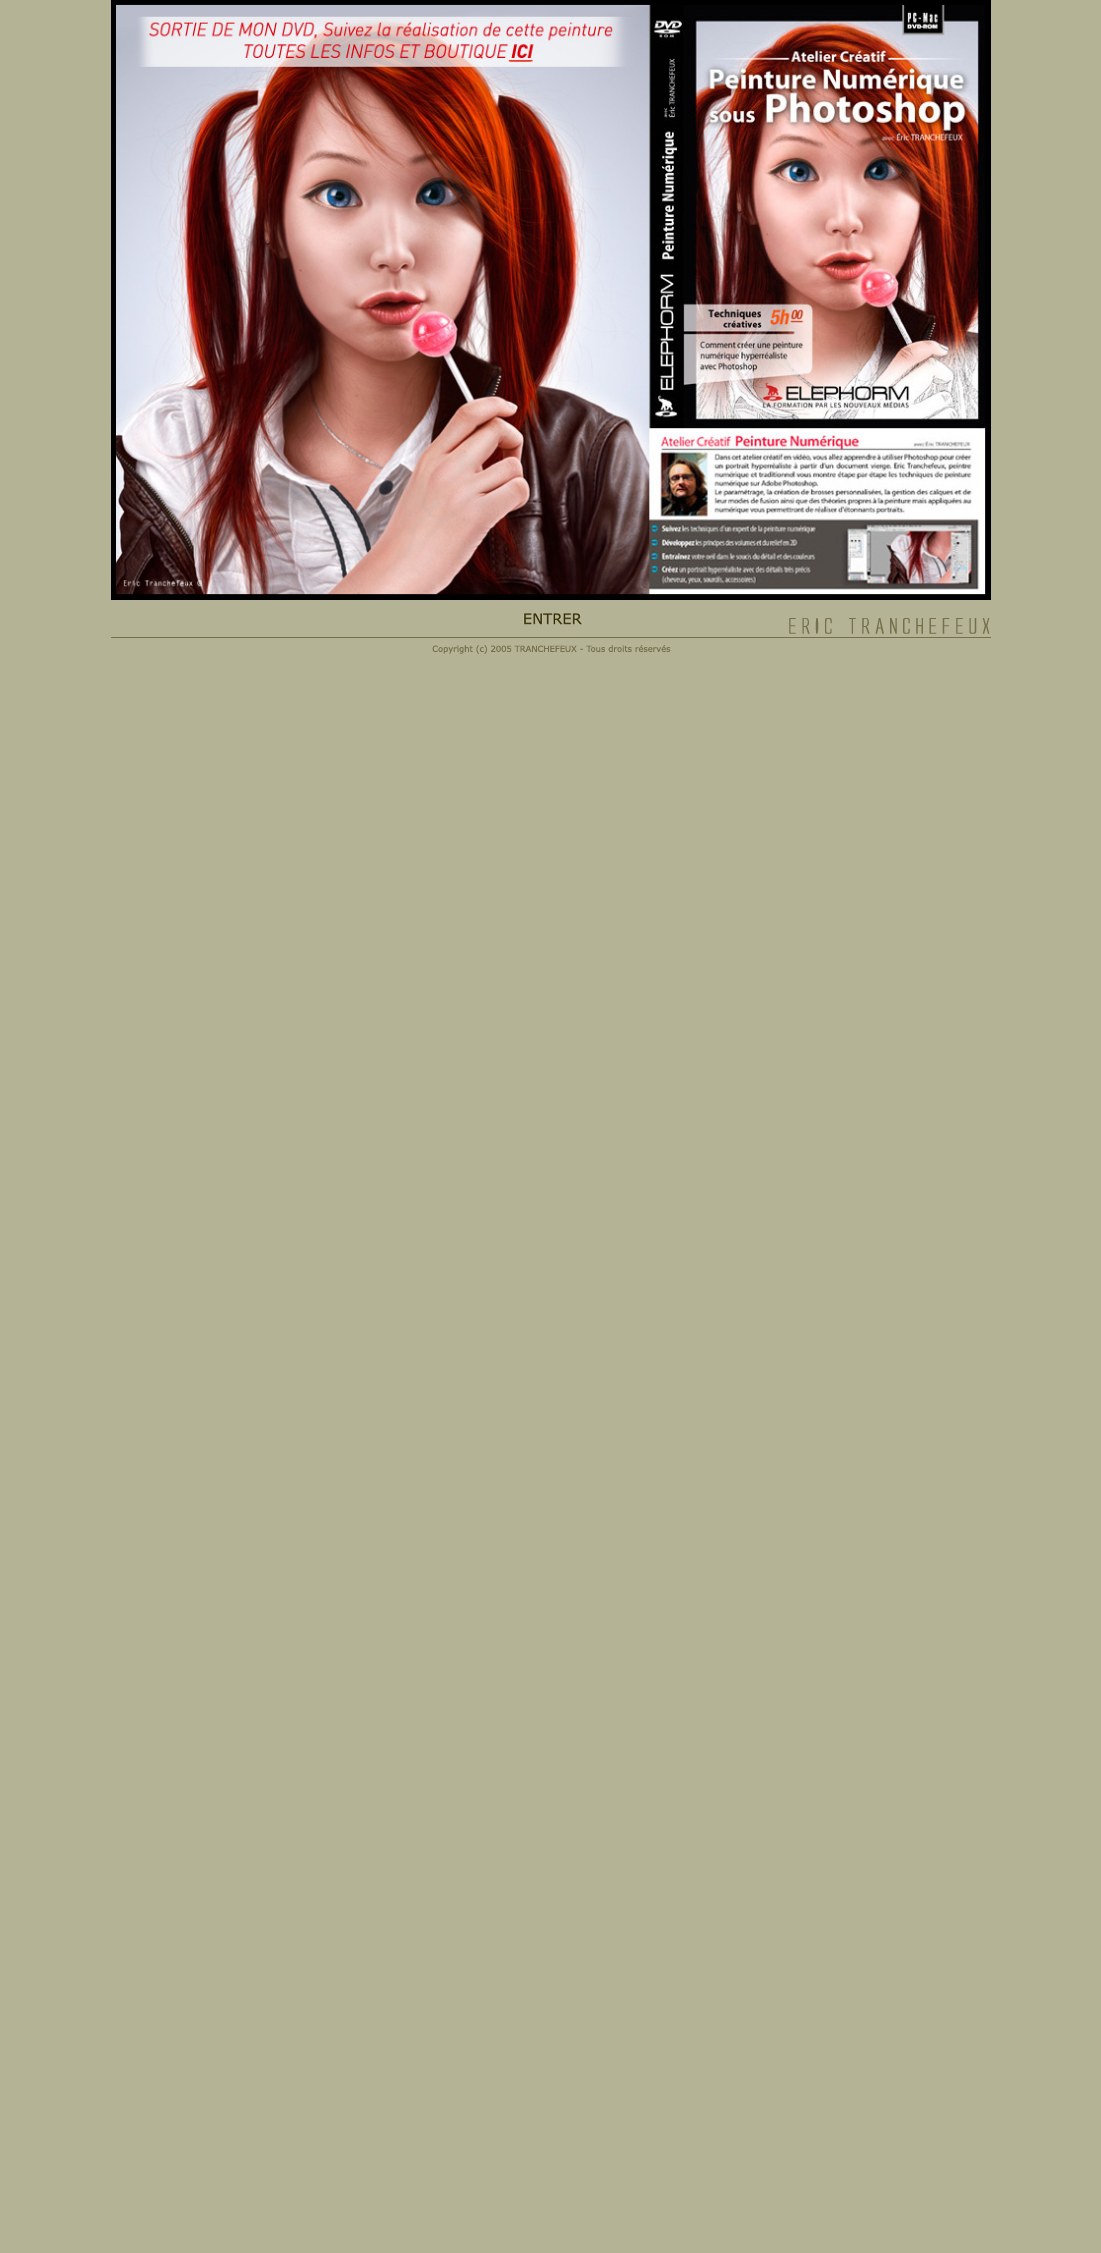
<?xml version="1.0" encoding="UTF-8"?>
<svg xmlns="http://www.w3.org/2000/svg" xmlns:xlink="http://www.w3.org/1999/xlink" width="1101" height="2253">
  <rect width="100%" height="100%" fill="#b5b396" />
  <image x="111" y="0" width="880" height="600" xlink:href="image1.png" />
  <image x="111" y="637" width="411" height="17" xlink:href="image2.png" />
  <image x="523" y="612" width="60" height="13" xlink:href="image3.png" />
  <image x="583" y="618" width="408" height="34" xlink:href="image4.png" />
  <image x="522" y="637" width="61" height="15" xlink:href="image5.png" />
</svg>
